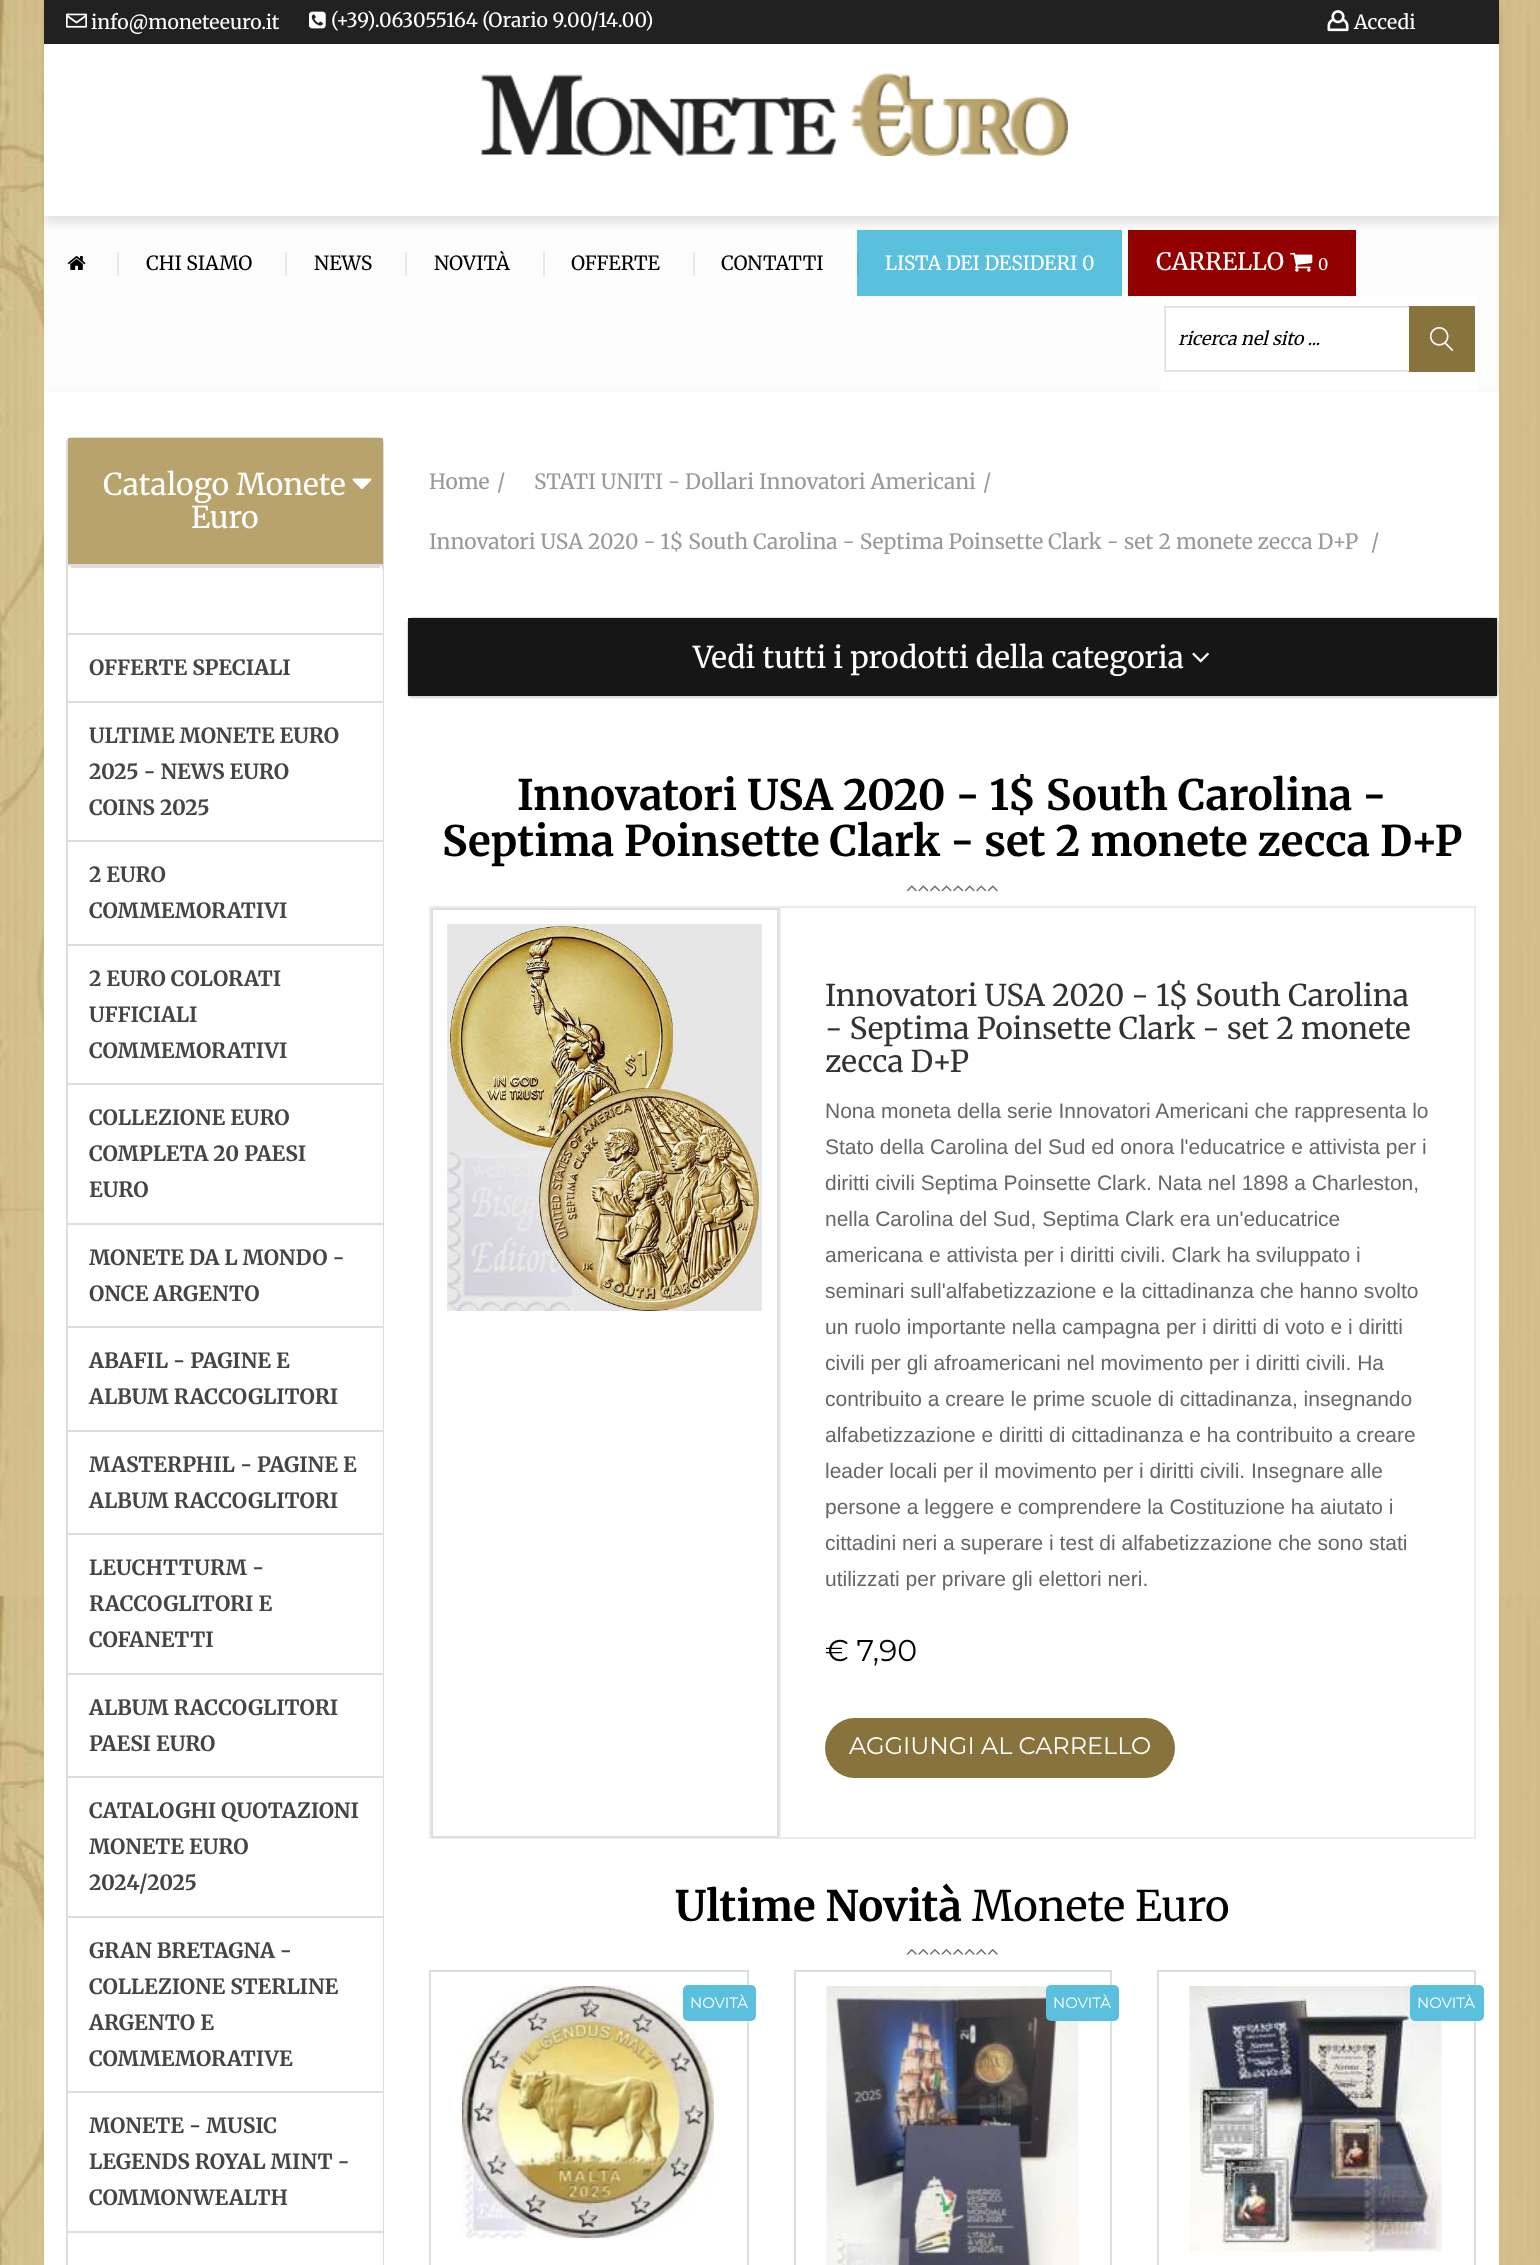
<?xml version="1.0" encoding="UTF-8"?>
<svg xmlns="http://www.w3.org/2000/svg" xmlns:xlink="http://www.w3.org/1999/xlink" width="1540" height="2265">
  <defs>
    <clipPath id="clip1"><path d="M 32 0 h 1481 v 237 h -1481 z m 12 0 h 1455 v 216 h -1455 z" clip-rule="evenodd" /></clipPath>
  </defs>
  <rect width="100%" height="100%" fill="#ffffff" />
  <image x="0" y="0" width="1540" height="2265" xlink:href="image1.png" />
  <rect x="44" y="44" width="1455" height="2221" fill="#ffffff" />
  <rect x="45" y="217" width="1453" height="174" fill="#fcfcfc" stroke="#fafafa" stroke-width="2" />
  <rect x="857" y="230" width="265" height="66" fill="#5bc0de" />
  <rect x="1128" y="230" width="228" height="66" fill="#930000" />
  <g clip-path="url(#clip1)">
    <rect x="45" y="8" width="1455" height="216" fill="#000000" fill-opacity="0.09" filter="blur(4px)" />
  </g>
  <rect x="44" width="1455" height="44" fill="#212121" />
  <image x="66" y="13" width="21" height="15" xlink:href="image2.png" />
  <image x="309" y="11" width="17" height="18" xlink:href="image3.png" />
  <image x="1327" y="10" width="22" height="22" xlink:href="image4.png" />
  <image x="481" y="73" width="587" height="83" xlink:href="image5.png" />
  <image x="67" y="256" width="19" height="14" xlink:href="image6.png" />
  <rect x="117" y="252" width="2" height="24" fill="#e8e8e8" />
  <rect x="285" y="252" width="2" height="24" fill="#e8e8e8" />
  <rect x="405" y="252" width="2" height="24" fill="#e8e8e8" />
  <rect x="543" y="252" width="2" height="24" fill="#e8e8e8" />
  <rect x="693" y="252" width="2" height="24" fill="#e8e8e8" />
  <rect x="857" y="252" width="2" height="24" fill="#58b2cd" />
  <rect x="1128" y="249" width="2" height="27" fill="#8a0606" />
  <image x="1290" y="252" width="23" height="20" xlink:href="image7.png" />
  <rect x="1161" y="296" width="317" height="94" fill="#ffffff" />
  <rect x="1165" y="307" width="249" height="64" fill="none" stroke="#e5e5e5" stroke-width="2" />
  <rect x="1409" y="306" width="66" height="66" fill="#88733c" />
  <image x="1429" y="327" width="25" height="24" xlink:href="image8.png" />
  <rect x="67" y="438" width="316" height="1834" rx="5" fill="none" stroke="#dddddd" stroke-width="2" />
  <rect x="68" y="438" width="315" height="126" fill="#b8a36c" />
  <image x="352" y="478" width="20" height="12" xlink:href="image9.png" />
  <rect x="68" y="564" width="315" height="2" fill="#dddddd" />
  <path d="M 74 566 h 303 c 3.5 0 6 2.5 6 6 v 61 h -315 v -61 c 0 -3.5 2.5 -6 6 -6 z" fill="#ffffff" />
  <rect x="71" y="566" width="309" height="2" fill="#dddddd" />
  <rect x="382" y="635" width="1" height="66" fill="#ffffff" />
  <rect x="68" y="633" width="315" height="2" fill="#dddddd" />
  <rect x="382" y="703" width="1" height="137" fill="#ffffff" />
  <rect x="68" y="701" width="315" height="2" fill="#dddddd" />
  <rect x="382" y="842" width="1" height="102" fill="#ffffff" />
  <rect x="68" y="840" width="315" height="2" fill="#dddddd" />
  <rect x="382" y="946" width="1" height="137" fill="#ffffff" />
  <rect x="68" y="944" width="315" height="2" fill="#dddddd" />
  <rect x="382" y="1085" width="1" height="138" fill="#ffffff" />
  <rect x="68" y="1083" width="315" height="2" fill="#dddddd" />
  <rect x="382" y="1225" width="1" height="101" fill="#ffffff" />
  <rect x="68" y="1223" width="315" height="2" fill="#dddddd" />
  <rect x="382" y="1328" width="1" height="102" fill="#ffffff" />
  <rect x="68" y="1326" width="315" height="2" fill="#dddddd" />
  <rect x="382" y="1432" width="1" height="101" fill="#ffffff" />
  <rect x="68" y="1430" width="315" height="2" fill="#dddddd" />
  <rect x="382" y="1535" width="1" height="138" fill="#ffffff" />
  <rect x="68" y="1533" width="315" height="2" fill="#dddddd" />
  <rect x="382" y="1675" width="1" height="101" fill="#ffffff" />
  <rect x="68" y="1673" width="315" height="2" fill="#dddddd" />
  <rect x="382" y="1778" width="1" height="138" fill="#ffffff" />
  <rect x="68" y="1776" width="315" height="2" fill="#dddddd" />
  <rect x="382" y="1918" width="1" height="173" fill="#ffffff" />
  <rect x="68" y="1916" width="315" height="2" fill="#dddddd" />
  <rect x="382" y="2093" width="1" height="138" fill="#ffffff" />
  <rect x="68" y="2091" width="315" height="2" fill="#dddddd" />
  <rect x="382" y="2233" width="1" height="32" fill="#ffffff" />
  <rect x="68" y="2231" width="315" height="2" fill="#dddddd" />
  <rect x="407" y="618" width="1092" height="81" rx="6" fill="#000000" fill-opacity="0.05" filter="blur(1px)" />
  <rect x="408" y="618" width="1090" height="79" rx="5" fill="none" stroke="#dddddd" stroke-width="2" />
  <rect x="408" y="618" width="1089" height="78" fill="#161616" />
  <image x="1192" y="652" width="17" height="11" xlink:href="image10.png" />
  <image x="906" y="885" width="92" height="7" xlink:href="image11.png" />
  <rect x="430" y="907" width="1045" height="931" fill="none" stroke="#ececec" stroke-width="2" />
  <rect x="432" y="909" width="346" height="928" fill="none" stroke="#dedede" stroke-width="2" />
  <image x="447" y="924" width="315" height="387" xlink:href="image12.png" />
  <rect x="779" y="908" width="2" height="930" fill="#ececec" />
  <rect x="825" y="1718" width="350" height="60" rx="30" fill="#88733c" />
  <image x="906" y="1949" width="92" height="6" xlink:href="image13.png" />
  <rect x="430" y="1971" width="318" height="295" fill="none" stroke="#dedede" stroke-width="2" />
  <image x="462" y="1986" width="252" height="252" xlink:href="image14.png" />
  <rect x="683" y="1985" width="73" height="36" rx="5" fill="#5bc0de" />
  <rect x="795" y="1971" width="316" height="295" fill="none" stroke="#dedede" stroke-width="2" />
  <image x="826" y="1986" width="253" height="279" xlink:href="image15.png" />
  <rect x="1046" y="1985" width="73" height="36" rx="5" fill="#5bc0de" />
  <rect x="1158" y="1971" width="317" height="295" fill="none" stroke="#dedede" stroke-width="2" />
  <image x="1189" y="1986" width="253" height="266" xlink:href="image16.png" />
  <rect x="1410" y="1985" width="74" height="36" rx="5" fill="#5bc0de" />
  <text x="91" y="29" style="font-family: Merriweather; font-size: 19.5px; fill: #ffffff">info@moneteeuro.it</text>
  <text x="331" y="27" style="font-family: Merriweather; font-size: 19.5px; fill: #ffffff">(+39).063055164 (Orario 9.00/14.00)</text>
  <text x="1354" y="29" style="font-family: Merriweather; font-size: 19.5px; fill: #ffffff">Accedi</text>
  <text x="146" y="270" style="font-family: Merriweather; font-size: 19.5px; fill: #000000">CHI SIAMO</text>
  <text x="314" y="270" style="font-family: Merriweather; font-size: 19.5px; fill: #000000">NEWS</text>
  <text x="434" y="270" style="font-family: Merriweather; font-size: 19.5px; fill: #000000">NOVITÀ</text>
  <text x="571" y="270" style="font-family: Merriweather; font-size: 19.5px; fill: #000000">OFFERTE</text>
  <text x="721" y="270" style="font-family: Merriweather; font-size: 19.5px; fill: #000000">CONTATTI</text>
  <text x="885" y="270" style="font-family: Merriweather; font-size: 19.5px; fill: #ffffff">LISTA DEI DESIDERI 0</text>
  <text x="1156" y="270" style="font-family: Merriweather; font-size: 24px; fill: #ffffff">CARRELLO</text>
  <text x="1318" y="270" style="font-family: Merriweather; font-size: 16px; fill: #ffffff">0</text>
  <text x="1178" y="345" style="font-family: Merriweather; font-size: 18px; font-style: italic; fill: #000000">ricerca nel sito ...</text>
  <text x="103" y="495" style="font-family: Merriweather; font-size: 30px; fill: #ffffff">Catalogo Monete</text>
  <text x="191" y="528" style="font-family: Merriweather; font-size: 30px; fill: #ffffff">Euro</text>
  <text x="89" y="675" style="font-family: Merriweather; font-size: 21px; font-weight: bold; fill: #454545">OFFERTE SPECIALI</text>
  <text x="89" y="743" style="font-family: Merriweather; font-size: 21px; font-weight: bold; fill: #454545">ULTIME MONETE EURO</text>
  <text x="89" y="779" style="font-family: Merriweather; font-size: 21px; font-weight: bold; fill: #454545">2025 - NEWS EURO</text>
  <text x="89" y="815" style="font-family: Merriweather; font-size: 21px; font-weight: bold; fill: #454545">COINS 2025</text>
  <text x="89" y="882" style="font-family: Merriweather; font-size: 21px; font-weight: bold; fill: #454545">2 EURO</text>
  <text x="89" y="918" style="font-family: Merriweather; font-size: 21px; font-weight: bold; fill: #454545">COMMEMORATIVI</text>
  <text x="89" y="986" style="font-family: Merriweather; font-size: 21px; font-weight: bold; fill: #454545">2 EURO COLORATI</text>
  <text x="89" y="1022" style="font-family: Merriweather; font-size: 21px; font-weight: bold; fill: #454545">UFFICIALI</text>
  <text x="89" y="1058" style="font-family: Merriweather; font-size: 21px; font-weight: bold; fill: #454545">COMMEMORATIVI</text>
  <text x="89" y="1125" style="font-family: Merriweather; font-size: 21px; font-weight: bold; fill: #454545">COLLEZIONE EURO</text>
  <text x="89" y="1161" style="font-family: Merriweather; font-size: 21px; font-weight: bold; fill: #454545">COMPLETA 20 PAESI</text>
  <text x="89" y="1197" style="font-family: Merriweather; font-size: 21px; font-weight: bold; fill: #454545">EURO</text>
  <text x="89" y="1265" style="font-family: Merriweather; font-size: 21px; font-weight: bold; fill: #454545">MONETE DA L MONDO -</text>
  <text x="89" y="1301" style="font-family: Merriweather; font-size: 21px; font-weight: bold; fill: #454545">ONCE ARGENTO</text>
  <text x="89" y="1368" style="font-family: Merriweather; font-size: 21px; font-weight: bold; fill: #454545">ABAFIL - PAGINE E</text>
  <text x="89" y="1404" style="font-family: Merriweather; font-size: 21px; font-weight: bold; fill: #454545">ALBUM RACCOGLITORI</text>
  <text x="89" y="1472" style="font-family: Merriweather; font-size: 21px; font-weight: bold; fill: #454545">MASTERPHIL - PAGINE E</text>
  <text x="89" y="1508" style="font-family: Merriweather; font-size: 21px; font-weight: bold; fill: #454545">ALBUM RACCOGLITORI</text>
  <text x="89" y="1575" style="font-family: Merriweather; font-size: 21px; font-weight: bold; fill: #454545">LEUCHTTURM -</text>
  <text x="89" y="1611" style="font-family: Merriweather; font-size: 21px; font-weight: bold; fill: #454545">RACCOGLITORI E</text>
  <text x="89" y="1647" style="font-family: Merriweather; font-size: 21px; font-weight: bold; fill: #454545">COFANETTI</text>
  <text x="89" y="1715" style="font-family: Merriweather; font-size: 21px; font-weight: bold; fill: #454545">ALBUM RACCOGLITORI</text>
  <text x="89" y="1751" style="font-family: Merriweather; font-size: 21px; font-weight: bold; fill: #454545">PAESI EURO</text>
  <text x="89" y="1818" style="font-family: Merriweather; font-size: 21px; font-weight: bold; fill: #454545">CATALOGHI QUOTAZIONI</text>
  <text x="89" y="1854" style="font-family: Merriweather; font-size: 21px; font-weight: bold; fill: #454545">MONETE EURO</text>
  <text x="89" y="1890" style="font-family: Merriweather; font-size: 21px; font-weight: bold; fill: #454545">2024/2025</text>
  <text x="89" y="1958" style="font-family: Merriweather; font-size: 21px; font-weight: bold; fill: #454545">GRAN BRETAGNA -</text>
  <text x="89" y="1994" style="font-family: Merriweather; font-size: 21px; font-weight: bold; fill: #454545">COLLEZIONE STERLINE</text>
  <text x="89" y="2030" style="font-family: Merriweather; font-size: 21px; font-weight: bold; fill: #454545">ARGENTO E</text>
  <text x="89" y="2066" style="font-family: Merriweather; font-size: 21px; font-weight: bold; fill: #454545">COMMEMORATIVE</text>
  <text x="89" y="2133" style="font-family: Merriweather; font-size: 21px; font-weight: bold; fill: #454545">MONETE - MUSIC</text>
  <text x="89" y="2169" style="font-family: Merriweather; font-size: 21px; font-weight: bold; fill: #454545">LEGENDS ROYAL MINT -</text>
  <text x="89" y="2205" style="font-family: Merriweather; font-size: 21px; font-weight: bold; fill: #454545">COMMONWEALTH</text>
  <text x="429" y="489" style="font-family: Merriweather; font-size: 21px; fill: #999999">Home</text>
  <text x="497" y="489" style="font-family: Merriweather; font-size: 21px; fill: #999999">/</text>
  <text x="534" y="489" style="font-family: Merriweather; font-size: 21px; fill: #999999">STATI UNITI - Dollari Innovatori Americani</text>
  <text x="983" y="489" style="font-family: Merriweather; font-size: 21px; fill: #999999">/</text>
  <text x="429" y="549" style="font-family: Merriweather; font-size: 21px; fill: #999999">Innovatori USA 2020 - 1$ South Carolina - Septima Poinsette Clark - set 2 monete zecca D+P</text>
  <text x="1371" y="549" style="font-family: Merriweather; font-size: 21px; fill: #999999">/</text>
  <text x="693" y="668" style="font-family: Merriweather; font-size: 30px; fill: #ffffff">Vedi tutti i prodotti della categoria</text>
  <text x="517" y="810" style="font-family: Merriweather; font-size: 42px; font-weight: bold; fill: #000000">Innovatori USA 2020 - 1$ South Carolina -</text>
  <text x="442" y="856" style="font-family: Merriweather; font-size: 42px; font-weight: bold; fill: #000000">Septima Poinsette Clark - set 2 monete zecca D+P</text>
  <text x="825" y="1006" style="font-family: Merriweather; font-size: 30px; fill: #333333">Innovatori USA 2020 - 1$ South Carolina</text>
  <text x="825" y="1039" style="font-family: Merriweather; font-size: 30px; fill: #333333">- Septima Poinsette Clark - set 2 monete</text>
  <text x="825" y="1072" style="font-family: Merriweather; font-size: 30px; fill: #333333">zecca D+P</text>
  <text x="825" y="1118" style="font-family: Arimo; font-size: 21px; fill: #666666">Nona moneta della serie Innovatori Americani che rappresenta lo</text>
  <text x="825" y="1154" style="font-family: Arimo; font-size: 21px; fill: #666666">Stato della Carolina del Sud ed onora l'educatrice e attivista per i</text>
  <text x="825" y="1190" style="font-family: Arimo; font-size: 21px; fill: #666666">diritti civili Septima Poinsette Clark. Nata nel 1898 a Charleston,</text>
  <text x="825" y="1226" style="font-family: Arimo; font-size: 21px; fill: #666666">nella Carolina del Sud, Septima Clark era un'educatrice</text>
  <text x="825" y="1262" style="font-family: Arimo; font-size: 21px; fill: #666666">americana e attivista per i diritti civili. Clark ha sviluppato i</text>
  <text x="825" y="1298" style="font-family: Arimo; font-size: 21px; fill: #666666">seminari sull'alfabetizzazione e la cittadinanza che hanno svolto</text>
  <text x="825" y="1334" style="font-family: Arimo; font-size: 21px; fill: #666666">un ruolo importante nella campagna per i diritti di voto e i diritti</text>
  <text x="825" y="1370" style="font-family: Arimo; font-size: 21px; fill: #666666">civili per gli afroamericani nel movimento per i diritti civili. Ha</text>
  <text x="825" y="1406" style="font-family: Arimo; font-size: 21px; fill: #666666">contribuito a creare le prime scuole di cittadinanza, insegnando</text>
  <text x="825" y="1442" style="font-family: Arimo; font-size: 21px; fill: #666666">alfabetizzazione e diritti di cittadinanza e ha contribuito a creare</text>
  <text x="825" y="1478" style="font-family: Arimo; font-size: 21px; fill: #666666">leader locali per il movimento per i diritti civili. Insegnare alle</text>
  <text x="825" y="1514" style="font-family: Arimo; font-size: 21px; fill: #666666">persone a leggere e comprendere la Costituzione ha aiutato i</text>
  <text x="825" y="1550" style="font-family: Arimo; font-size: 21px; fill: #666666">cittadini neri a superare i test di alfabetizzazione che sono stati</text>
  <text x="825" y="1586" style="font-family: Arimo; font-size: 21px; fill: #666666">utilizzati per privare gli elettori neri.</text>
  <text x="825" y="1661" style="font-family: Montserrat; font-size: 30px; font-weight: 100; fill: #000000">€ 7,90</text>
  <text x="849" y="1754" style="font-family: Montserrat; font-size: 24px; font-weight: 100; fill: #ffffff">AGGIUNGI AL CARRELLO</text>
  <text x="675" y="1921" style="font-family: Merriweather; font-size: 42px; font-weight: bold; fill: #000000">Ultime Novità</text>
  <text x="972" y="1921" style="font-family: Merriweather; font-size: 42px; fill: #000000">Monete Euro</text>
  <text x="690" y="2008" style="font-family: Montserrat; font-size: 15px; font-weight: 100; fill: #ffffff">NOVITÀ</text>
  <text x="1053" y="2008" style="font-family: Montserrat; font-size: 15px; font-weight: 100; fill: #ffffff">NOVITÀ</text>
  <text x="1417" y="2008" style="font-family: Montserrat; font-size: 15px; font-weight: 100; fill: #ffffff">NOVITÀ</text>
</svg>
